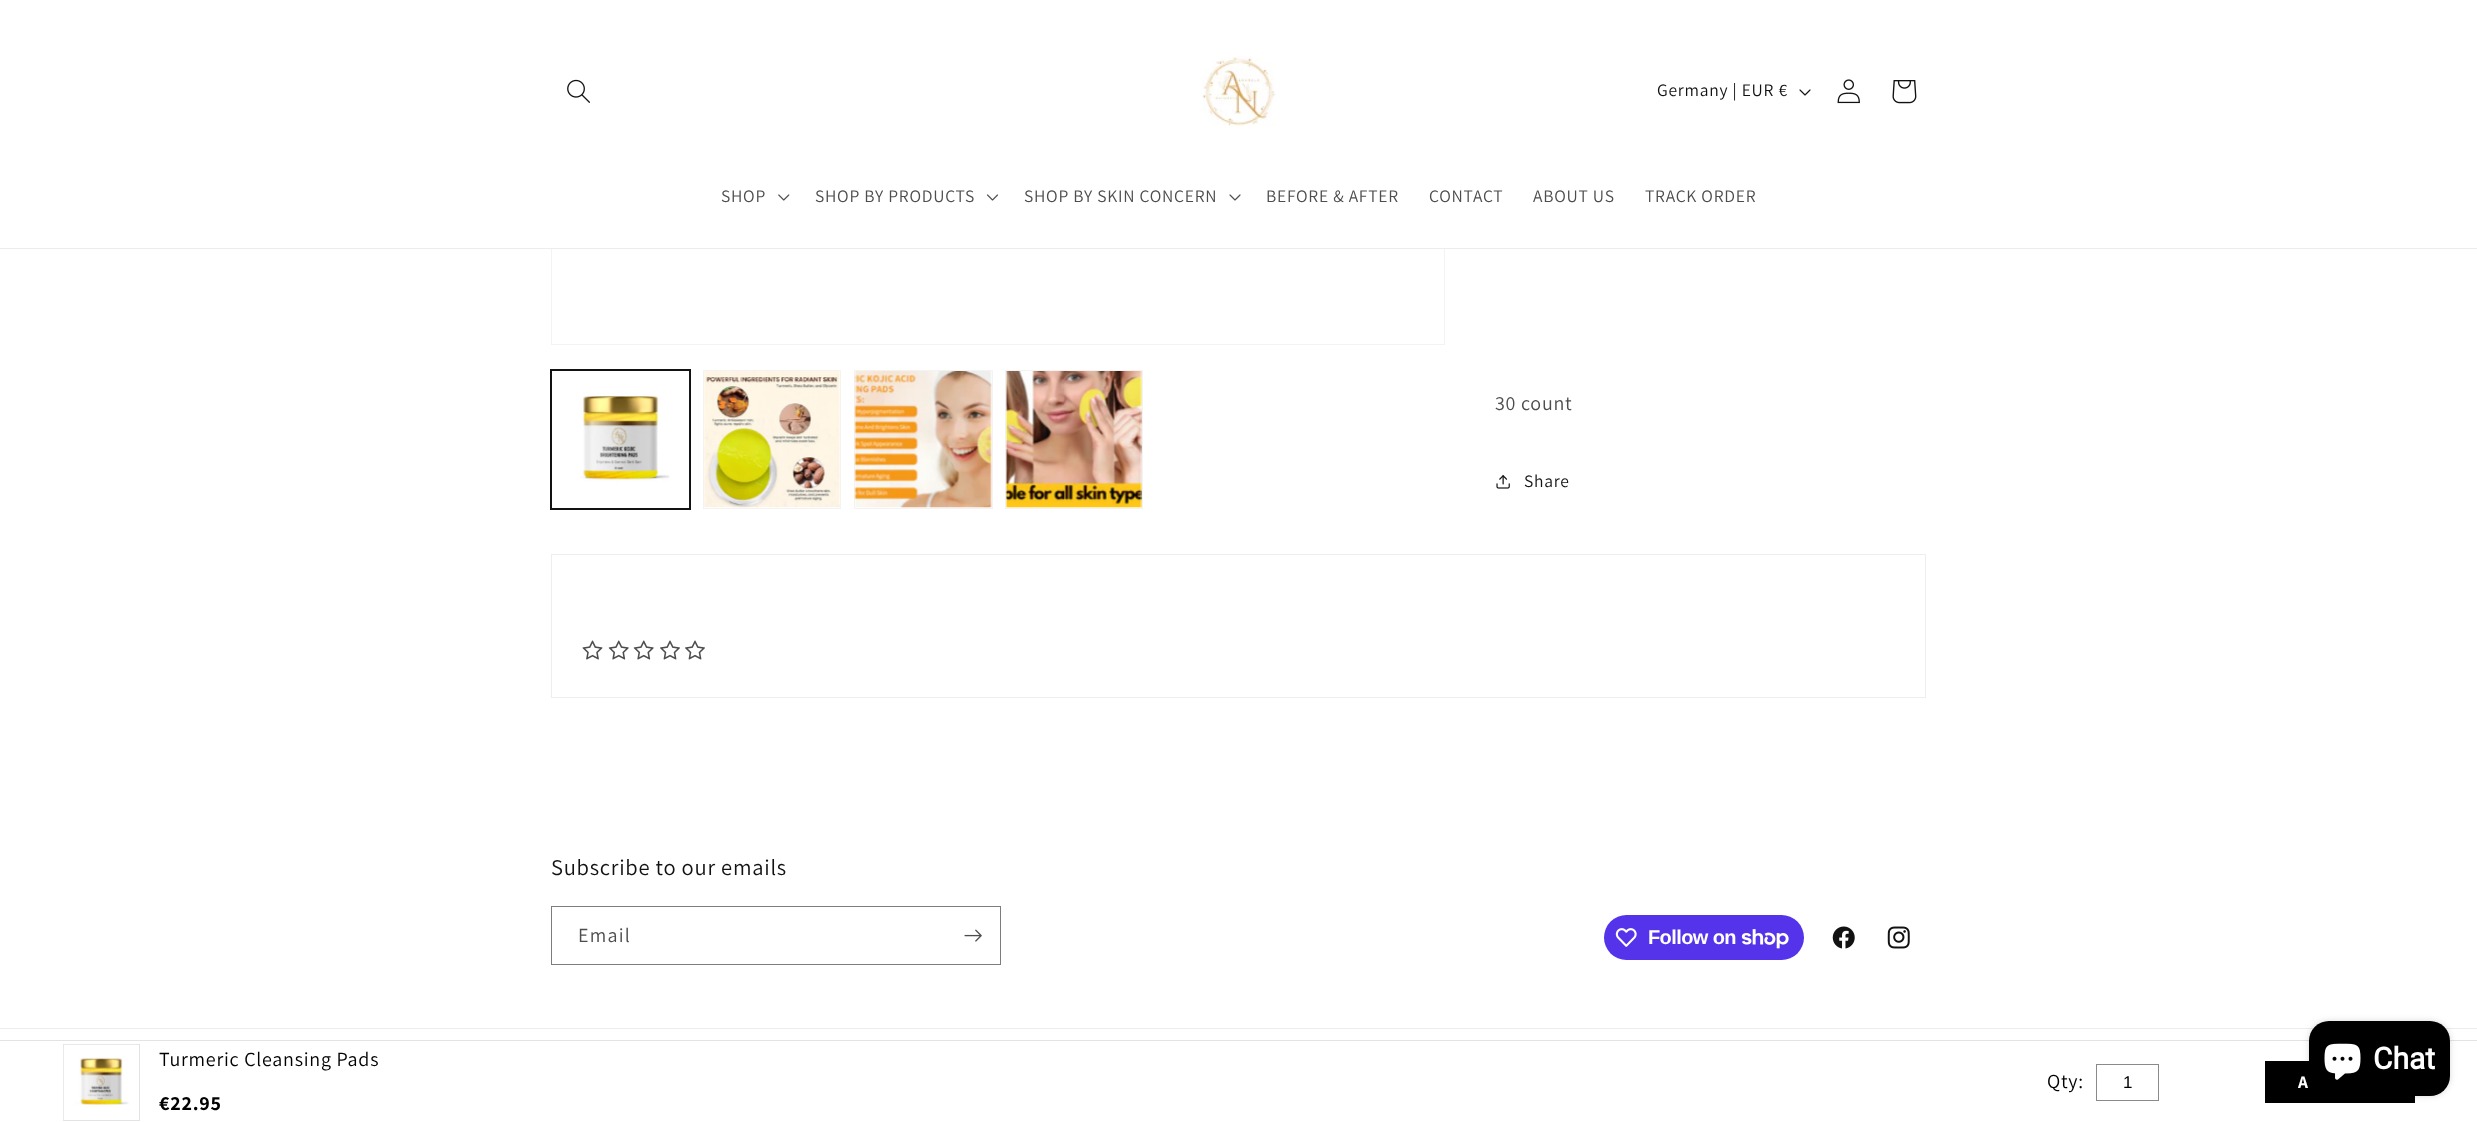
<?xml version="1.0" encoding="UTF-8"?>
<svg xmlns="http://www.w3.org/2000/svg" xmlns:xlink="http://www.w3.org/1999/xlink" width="2477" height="1122">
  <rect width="100%" height="100%" fill="#ffffff" />
  <rect x="551.5" y="-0.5" width="893" height="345" fill="none" stroke="#f3f3f3" />
  <rect x="551" width="894" height="248" fill="#ffffff" />
  <rect y="248" width="2477" height="1" fill="#ececec" />
  <image x="567" y="79" width="23" height="24" xlink:href="image1.png" />
  <image x="1201" y="56" width="75" height="70" xlink:href="image2.png" />
  <image x="1799" y="89" width="12" height="7" xlink:href="image3.png" />
  <image x="1837" y="79" width="23" height="25" xlink:href="image4.png" />
  <image x="1892" y="80" width="25" height="24" xlink:href="image5.png" />
  <image x="778" y="194" width="12" height="7" xlink:href="image6.png" />
  <image x="987" y="194" width="11" height="7" xlink:href="image7.png" />
  <image x="1229" y="194" width="12" height="7" xlink:href="image8.png" />
  <rect x="550.5" y="369.5" width="140" height="140" fill="none" stroke="#121212" />
  <rect x="551.5" y="370.5" width="138" height="138" fill="none" stroke="#121212" />
  <image x="579" y="371" width="111" height="136" xlink:href="image9.png" />
  <rect x="703.5" y="370.5" width="137" height="138" fill="none" stroke="#f3f3f3" />
  <image x="703" y="371" width="137" height="137" xlink:href="image10.png" />
  <rect x="854.5" y="370.5" width="138" height="138" fill="none" stroke="#f3f3f3" />
  <image x="854" y="371" width="138" height="137" xlink:href="image11.png" />
  <rect x="1005.5" y="370.5" width="137" height="138" fill="none" stroke="#f3f3f3" />
  <image x="1005" y="371" width="137" height="137" xlink:href="image12.png" />
  <image x="1496" y="475" width="14" height="14" xlink:href="image13.png" />
  <rect x="551.5" y="554.5" width="1374" height="143" fill="none" stroke="#eeeeee" />
  <image x="582" y="640" width="21" height="20" xlink:href="image14.png" />
  <image x="608" y="640" width="21" height="20" xlink:href="image15.png" />
  <image x="633" y="640" width="21" height="20" xlink:href="image15.png" />
  <image x="660" y="640" width="20" height="20" xlink:href="image16.png" />
  <image x="685" y="640" width="20" height="20" xlink:href="image16.png" />
  <rect x="551.5" y="906.5" width="449" height="58" fill="none" stroke="#7d7d7d" />
  <image x="964" y="929" width="18" height="13" xlink:href="image17.png" />
  <rect x="1604" y="915" width="200" height="45" rx="22.5" fill="#5433eb" />
  <image x="1615" y="928" width="22" height="19" xlink:href="image18.png" />
  <image x="1741" y="929" width="48" height="20" xlink:href="image19.png" />
  <image x="1832" y="926" width="23" height="23" xlink:href="image20.png" />
  <image x="1887" y="926" width="23" height="23" xlink:href="image21.png" />
  <rect y="1028" width="2477" height="1" fill="#ececec" />
  <rect y="1040" width="2477" height="1" fill="#e3e3e3" />
  <rect x="63.5" y="1044.5" width="76" height="76" fill="none" stroke="#e3e3e3" />
  <image x="63" y="1044" width="75" height="76" xlink:href="image22.png" />
  <rect x="2096.5" y="1064.5" width="62" height="36" fill="none" stroke="#8a8a8a" />
  <rect x="2265" y="1061" width="150" height="42" fill="#000000" />
  <rect x="2309" y="1021" width="141" height="75" rx="20" fill="#000000" fill-opacity="0.15" filter="blur(3px)" />
  <rect x="2309" y="1021" width="141" height="75" rx="20" fill="#000000" />
  <image x="2324" y="1043" width="37" height="37" xlink:href="image23.png" />
  <text x="1657" y="96" style="font-family: Assistant; font-size: 17.5px; letter-spacing: 0.75px; fill: #121212">Germany | EUR €</text>
  <text x="721" y="202" style="font-family: Assistant; font-size: 17.5px; letter-spacing: 0.75px; fill: #4d4d4d">SHOP</text>
  <text x="815" y="202" style="font-family: Assistant; font-size: 17.5px; letter-spacing: 0.75px; fill: #4d4d4d">SHOP BY PRODUCTS</text>
  <text x="1024" y="202" style="font-family: Assistant; font-size: 17.5px; letter-spacing: 0.75px; fill: #4d4d4d">SHOP BY SKIN CONCERN</text>
  <text x="1266" y="202" style="font-family: Assistant; font-size: 17.5px; letter-spacing: 0.75px; fill: #4d4d4d">BEFORE &amp; AFTER</text>
  <text x="1429" y="202" style="font-family: Assistant; font-size: 17.5px; letter-spacing: 0.75px; fill: #4d4d4d">CONTACT</text>
  <text x="1533" y="202" style="font-family: Assistant; font-size: 17.5px; letter-spacing: 0.75px; fill: #4d4d4d">ABOUT US</text>
  <text x="1645" y="202" style="font-family: Assistant; font-size: 17.5px; letter-spacing: 0.75px; fill: #4d4d4d">TRACK ORDER</text>
  <text x="1495" y="410" style="font-family: Assistant; font-size: 20px; letter-spacing: 0.75px; fill: #4d4d4d">30 count</text>
  <text x="1524" y="487" style="font-family: Assistant; font-size: 17.5px; letter-spacing: 0.75px; fill: #121212">Share</text>
  <text x="551" y="875" style="font-family: Assistant; font-size: 22.5px; letter-spacing: 0.75px; fill: #121212">Subscribe to our emails</text>
  <text x="578" y="942" style="font-family: Assistant; font-size: 20px; letter-spacing: 1.25px; fill: #4d4d4d">Email</text>
  <text x="1648" y="944" style="font-family: Liberation Sans; font-size: 20px; font-weight: bold; letter-spacing: -0.6px; fill: #ffffff">Follow on</text>
  <text x="159" y="1066" style="font-family: Assistant; font-size: 20px; letter-spacing: 0.75px; fill: #000000">Turmeric Cleansing Pads</text>
  <text x="159" y="1110" style="font-family: Assistant; font-size: 20px; font-weight: bold; letter-spacing: 0.75px; fill: #000000">€22.95</text>
  <text x="2047" y="1088" style="font-family: Assistant; font-size: 20px; letter-spacing: 0.75px; fill: #000000">Qty:</text>
  <text x="2123" y="1088" style="font-family: Liberation Sans; font-size: 17px; fill: #000000">1</text>
  <text x="2298" y="1088" style="font-family: Assistant; font-size: 17.5px; font-weight: bold; fill: #ffffff">A</text>
  <text x="2373" y="1069" style="font-family: Roboto; font-size: 30px; font-weight: bold; fill: #ffffff">Chat</text>
</svg>
